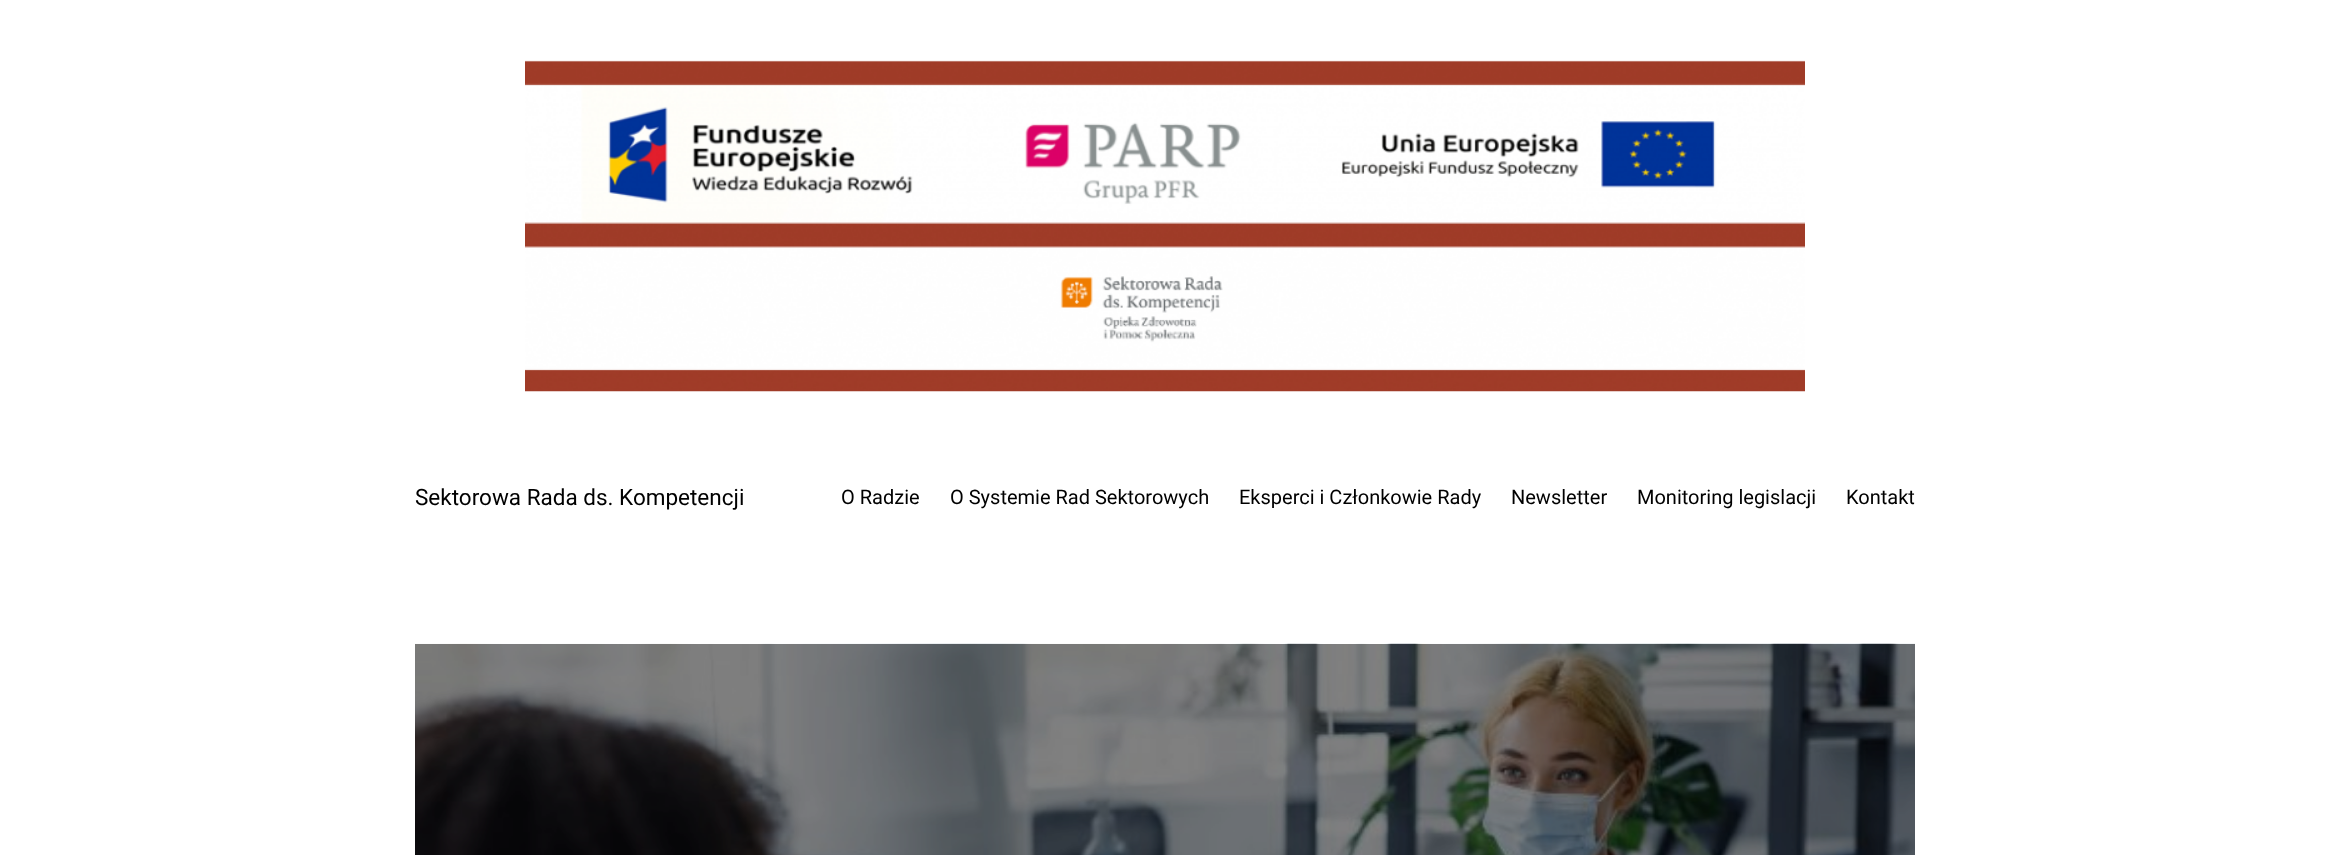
<?xml version="1.0" encoding="UTF-8"?>
<svg xmlns="http://www.w3.org/2000/svg" xmlns:xlink="http://www.w3.org/1999/xlink" width="2330" height="855">
  <rect width="100%" height="100%" fill="#ffffff" />
  <image x="525" y="60" width="1280" height="332" xlink:href="image1.png" />
  <image x="415" y="643" width="1500" height="212" xlink:href="image2.png" />
  <text x="415" y="505" style="font-family: Roboto; font-size: 22.5px; fill: #000000">Sektorowa Rada ds. Kompetencji</text>
  <text x="841" y="504" style="font-family: Roboto; font-size: 20px; fill: #000000">O Radzie</text>
  <text x="950" y="504" style="font-family: Roboto; font-size: 20px; fill: #000000">O Systemie Rad Sektorowych</text>
  <text x="1239" y="504" style="font-family: Roboto; font-size: 20px; fill: #000000">Eksperci i Członkowie Rady</text>
  <text x="1511" y="504" style="font-family: Roboto; font-size: 20px; fill: #000000">Newsletter</text>
  <text x="1637" y="504" style="font-family: Roboto; font-size: 20px; fill: #000000">Monitoring legislacji</text>
  <text x="1846" y="504" style="font-family: Roboto; font-size: 20px; fill: #000000">Kontakt</text>
</svg>
